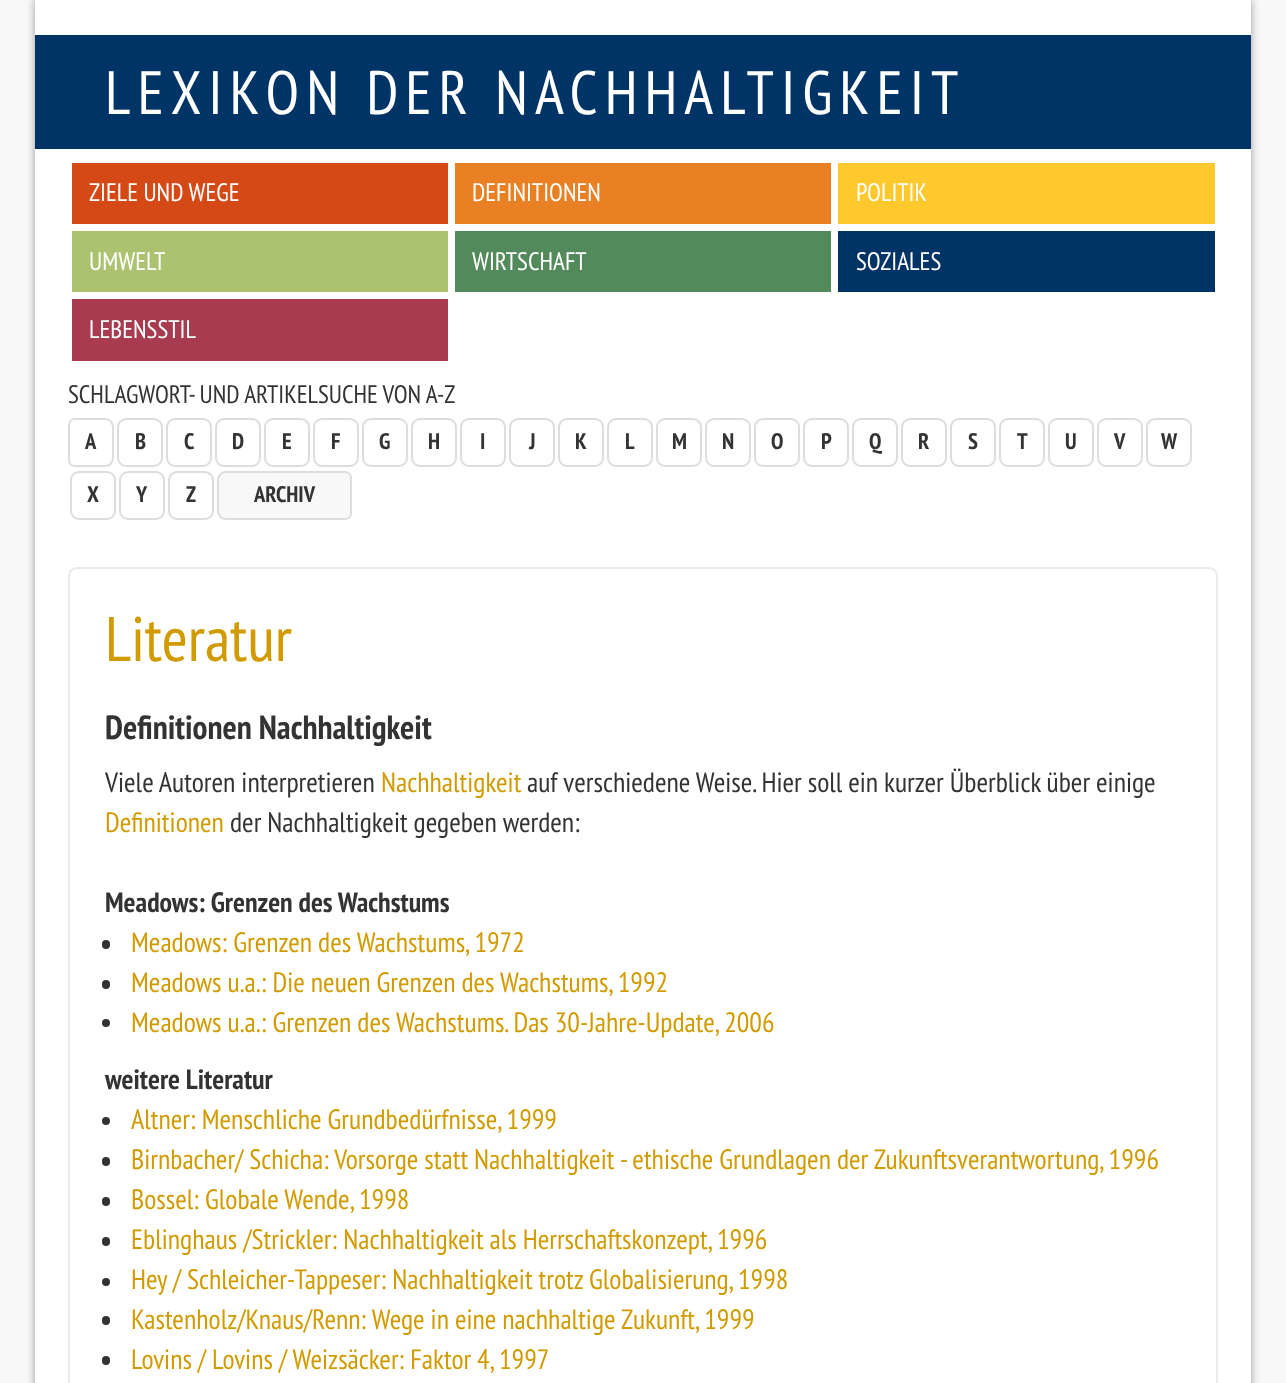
<?xml version="1.0" encoding="UTF-8"?>
<svg xmlns="http://www.w3.org/2000/svg" xmlns:xlink="http://www.w3.org/1999/xlink" width="1286" height="1383">
  <rect width="100%" height="100%" fill="#f8f8f8" />
  <rect x="35" width="1216" height="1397" fill="#999999" filter="blur(4.5px)" />
  <rect x="35" width="1216" height="1383" fill="#ffffff" />
  <rect x="35" y="35" width="1216" height="114" fill="#003466" />
  <rect x="72" y="163" width="376" height="61" fill="#d54916" />
  <rect x="455" y="163" width="376" height="61" fill="#e98023" />
  <rect x="838" y="163" width="377" height="61" fill="#ffc82c" />
  <rect x="72" y="231" width="376" height="61" fill="#abc370" />
  <rect x="455" y="231" width="376" height="61" fill="#538a5b" />
  <rect x="838" y="231" width="377" height="61" fill="#003466" />
  <rect x="72" y="299" width="376" height="62" fill="#a93b50" />
  <path d="M 75 419 h 30 c 4.5 0 8 3.5 8 8 v 31 c 0 4.5 -3.5 8 -8 8 h -30 c -3.5 0 -6 -2.5 -6 -6 v -35 c 0 -3.5 2.5 -6 6 -6 z" fill="none" stroke="#dddddd" stroke-width="2" />
  <rect x="118" y="419" width="44" height="47" rx="8" fill="none" stroke="#dddddd" stroke-width="2" />
  <rect x="167" y="419" width="44" height="47" rx="8" fill="none" stroke="#dddddd" stroke-width="2" />
  <rect x="216" y="419" width="44" height="47" rx="8" fill="none" stroke="#dddddd" stroke-width="2" />
  <rect x="265" y="419" width="44" height="47" rx="8" fill="none" stroke="#dddddd" stroke-width="2" />
  <rect x="314" y="419" width="44" height="47" rx="8" fill="none" stroke="#dddddd" stroke-width="2" />
  <rect x="363" y="419" width="44" height="47" rx="8" fill="none" stroke="#dddddd" stroke-width="2" />
  <rect x="412" y="419" width="44" height="47" rx="8" fill="none" stroke="#dddddd" stroke-width="2" />
  <rect x="461" y="419" width="44" height="47" rx="8" fill="none" stroke="#dddddd" stroke-width="2" />
  <rect x="510" y="419" width="44" height="47" rx="8" fill="none" stroke="#dddddd" stroke-width="2" />
  <rect x="559" y="419" width="44" height="47" rx="8" fill="none" stroke="#dddddd" stroke-width="2" />
  <rect x="608" y="419" width="44" height="47" rx="8" fill="none" stroke="#dddddd" stroke-width="2" />
  <rect x="657" y="419" width="44" height="47" rx="8" fill="none" stroke="#dddddd" stroke-width="2" />
  <rect x="706" y="419" width="44" height="47" rx="8" fill="none" stroke="#dddddd" stroke-width="2" />
  <rect x="755" y="419" width="44" height="47" rx="8" fill="none" stroke="#dddddd" stroke-width="2" />
  <rect x="804" y="419" width="44" height="47" rx="8" fill="none" stroke="#dddddd" stroke-width="2" />
  <rect x="853" y="419" width="44" height="47" rx="8" fill="none" stroke="#dddddd" stroke-width="2" />
  <rect x="902" y="419" width="44" height="47" rx="8" fill="none" stroke="#dddddd" stroke-width="2" />
  <rect x="951" y="419" width="44" height="47" rx="8" fill="none" stroke="#dddddd" stroke-width="2" />
  <rect x="1000" y="419" width="44" height="47" rx="8" fill="none" stroke="#dddddd" stroke-width="2" />
  <rect x="1049" y="419" width="44" height="47" rx="8" fill="none" stroke="#dddddd" stroke-width="2" />
  <rect x="1098" y="419" width="44" height="47" rx="8" fill="none" stroke="#dddddd" stroke-width="2" />
  <rect x="1147" y="419" width="44" height="47" rx="8" fill="none" stroke="#dddddd" stroke-width="2" />
  <rect x="71" y="472" width="44" height="47" rx="8" fill="none" stroke="#dddddd" stroke-width="2" />
  <rect x="120" y="472" width="44" height="47" rx="8" fill="none" stroke="#dddddd" stroke-width="2" />
  <rect x="169" y="472" width="44" height="47" rx="8" fill="none" stroke="#dddddd" stroke-width="2" />
  <path d="M 226 472 h 119 c 3.5 0 6 2.5 6 6 v 35 c 0 3.5 -2.5 6 -6 6 h -119 c -4.5 0 -8 -3.5 -8 -8 v -31 c 0 -4.5 3.5 -8 8 -8 z" fill="#f8f8f8" stroke="#dddddd" stroke-width="2" />
  <path d="M 77 568 h 1132 c 4.5 0 8 3.5 8 8 v 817 h -1148 v -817 c 0 -4.5 3.5 -8 8 -8 z" fill="none" stroke="#ebebeb" stroke-width="2" />
  <rect x="102" y="940" width="8" height="9" rx="4" fill="#333333" />
  <rect x="102" y="980" width="8" height="9" rx="4" fill="#333333" />
  <circle cx="106" cy="1023" r="4" fill="#333333" />
  <circle cx="106" cy="1121" r="4" fill="#333333" />
  <rect x="102" y="1157" width="8" height="9" rx="4" fill="#333333" />
  <rect x="102" y="1197" width="8" height="9" rx="4" fill="#333333" />
  <rect x="102" y="1237" width="8" height="9" rx="4" fill="#333333" />
  <circle cx="106" cy="1282" r="4" fill="#333333" />
  <rect x="102" y="1316" width="8" height="9" rx="4" fill="#333333" />
  <rect x="102" y="1356" width="8" height="9" rx="4" fill="#333333" />
  <text x="105" y="114" style="font-family: PT Sans Narrow; font-size: 61.25px; letter-spacing: 7px; fill: #ffffff">LEXIKON DER NACHHALTIGKEIT</text>
  <text x="89" y="201" style="font-family: PT Sans Narrow; font-size: 25.25px; fill: #ffffff">ZIELE UND WEGE</text>
  <text x="472" y="201" style="font-family: PT Sans Narrow; font-size: 25.25px; fill: #ffffff">DEFINITIONEN</text>
  <text x="856" y="201" style="font-family: PT Sans Narrow; font-size: 25.25px; fill: #ffffff">POLITIK</text>
  <text x="89" y="270" style="font-family: PT Sans Narrow; font-size: 25.25px; fill: #ffffff">UMWELT</text>
  <text x="472" y="270" style="font-family: PT Sans Narrow; font-size: 25.25px; fill: #ffffff">WIRTSCHAFT</text>
  <text x="856" y="270" style="font-family: PT Sans Narrow; font-size: 25.25px; fill: #ffffff">SOZIALES</text>
  <text x="89" y="338" style="font-family: PT Sans Narrow; font-size: 25.25px; fill: #ffffff">LEBENSSTIL</text>
  <text x="68" y="403" style="font-family: PT Sans Narrow; font-size: 25.25px; fill: #333333">SCHLAGWORT- UND ARTIKELSUCHE VON A-Z</text>
  <text x="85" y="449" style="font-family: PT Sans Narrow; font-size: 22.5px; font-weight: bold; fill: #333333">A</text>
  <text x="135" y="449" style="font-family: PT Sans Narrow; font-size: 22.5px; font-weight: bold; fill: #333333">B</text>
  <text x="184" y="449" style="font-family: PT Sans Narrow; font-size: 22.5px; font-weight: bold; fill: #333333">C</text>
  <text x="232" y="449" style="font-family: PT Sans Narrow; font-size: 22.5px; font-weight: bold; fill: #333333">D</text>
  <text x="282" y="449" style="font-family: PT Sans Narrow; font-size: 22.5px; font-weight: bold; fill: #333333">E</text>
  <text x="331" y="449" style="font-family: PT Sans Narrow; font-size: 22.5px; font-weight: bold; fill: #333333">F</text>
  <text x="379" y="449" style="font-family: PT Sans Narrow; font-size: 22.5px; font-weight: bold; fill: #333333">G</text>
  <text x="428" y="449" style="font-family: PT Sans Narrow; font-size: 22.5px; font-weight: bold; fill: #333333">H</text>
  <text x="480" y="449" style="font-family: PT Sans Narrow; font-size: 22.5px; font-weight: bold; fill: #333333">I</text>
  <text x="529" y="449" style="font-family: PT Sans Narrow; font-size: 22.5px; font-weight: bold; fill: #333333">J</text>
  <text x="575" y="449" style="font-family: PT Sans Narrow; font-size: 22.5px; font-weight: bold; fill: #333333">K</text>
  <text x="625" y="449" style="font-family: PT Sans Narrow; font-size: 22.5px; font-weight: bold; fill: #333333">L</text>
  <text x="672" y="449" style="font-family: PT Sans Narrow; font-size: 22.5px; font-weight: bold; fill: #333333">M</text>
  <text x="722" y="449" style="font-family: PT Sans Narrow; font-size: 22.5px; font-weight: bold; fill: #333333">N</text>
  <text x="771" y="449" style="font-family: PT Sans Narrow; font-size: 22.5px; font-weight: bold; fill: #333333">O</text>
  <text x="821" y="449" style="font-family: PT Sans Narrow; font-size: 22.5px; font-weight: bold; fill: #333333">P</text>
  <text x="869" y="449" style="font-family: PT Sans Narrow; font-size: 22.5px; font-weight: bold; fill: #333333">Q</text>
  <text x="918" y="449" style="font-family: PT Sans Narrow; font-size: 22.5px; font-weight: bold; fill: #333333">R</text>
  <text x="968" y="449" style="font-family: PT Sans Narrow; font-size: 22.5px; font-weight: bold; fill: #333333">S</text>
  <text x="1017" y="449" style="font-family: PT Sans Narrow; font-size: 22.5px; font-weight: bold; fill: #333333">T</text>
  <text x="1065" y="449" style="font-family: PT Sans Narrow; font-size: 22.5px; font-weight: bold; fill: #333333">U</text>
  <text x="1114" y="449" style="font-family: PT Sans Narrow; font-size: 22.5px; font-weight: bold; fill: #333333">V</text>
  <text x="1161" y="449" style="font-family: PT Sans Narrow; font-size: 22.5px; font-weight: bold; fill: #333333">W</text>
  <text x="87" y="502" style="font-family: PT Sans Narrow; font-size: 22.5px; font-weight: bold; fill: #333333">X</text>
  <text x="136" y="502" style="font-family: PT Sans Narrow; font-size: 22.5px; font-weight: bold; fill: #333333">Y</text>
  <text x="186" y="502" style="font-family: PT Sans Narrow; font-size: 22.5px; font-weight: bold; fill: #333333">Z</text>
  <text x="254" y="502" style="font-family: PT Sans Narrow; font-size: 22.5px; font-weight: bold; fill: #333333">ARCHIV</text>
  <text x="105" y="661" style="font-family: PT Sans Narrow; font-size: 63px; fill: #d19b00">Literatur</text>
  <text x="105" y="739" style="font-family: PT Sans Narrow; font-size: 33.5px; font-weight: bold; fill: #333333">Definitionen Nachhaltigkeit</text>
  <text x="105" y="792" style="font-family: PT Sans Narrow; font-size: 28px; fill: #333333">Viele Autoren interpretieren</text>
  <text x="381" y="792" style="font-family: PT Sans Narrow; font-size: 28px; fill: #d19b00">Nachhaltigkeit</text>
  <text x="527" y="792" style="font-family: PT Sans Narrow; font-size: 28px; fill: #333333">auf verschiedene Weise. Hier soll ein kurzer Überblick über einige</text>
  <text x="105" y="832" style="font-family: PT Sans Narrow; font-size: 28px; fill: #d19b00">Definitionen</text>
  <text x="230" y="832" style="font-family: PT Sans Narrow; font-size: 28px; fill: #333333">der Nachhaltigkeit gegeben werden:</text>
  <text x="105" y="912" style="font-family: PT Sans Narrow; font-size: 28px; font-weight: bold; fill: #333333">Meadows: Grenzen des Wachstums</text>
  <text x="131" y="952" style="font-family: PT Sans Narrow; font-size: 28px; fill: #d19b00">Meadows: Grenzen des Wachstums, 1972</text>
  <text x="131" y="992" style="font-family: PT Sans Narrow; font-size: 28px; fill: #d19b00">Meadows u.a.: Die neuen Grenzen des Wachstums, 1992</text>
  <text x="131" y="1032" style="font-family: PT Sans Narrow; font-size: 28px; fill: #d19b00">Meadows u.a.: Grenzen des Wachstums. Das 30-Jahre-Update, 2006</text>
  <text x="105" y="1089" style="font-family: PT Sans Narrow; font-size: 28px; font-weight: bold; fill: #333333">weitere Literatur</text>
  <text x="131" y="1129" style="font-family: PT Sans Narrow; font-size: 28px; fill: #d19b00">Altner: Menschliche Grundbedürfnisse, 1999</text>
  <text x="131" y="1169" style="font-family: PT Sans Narrow; font-size: 28px; fill: #d19b00">Birnbacher/ Schicha: Vorsorge statt Nachhaltigkeit - ethische Grundlagen der Zukunftsverantwortung, 1996</text>
  <text x="131" y="1209" style="font-family: PT Sans Narrow; font-size: 28px; fill: #d19b00">Bossel: Globale Wende, 1998</text>
  <text x="131" y="1249" style="font-family: PT Sans Narrow; font-size: 28px; fill: #d19b00">Eblinghaus /Strickler: Nachhaltigkeit als Herrschaftskonzept, 1996</text>
  <text x="131" y="1289" style="font-family: PT Sans Narrow; font-size: 28px; fill: #d19b00">Hey / Schleicher-Tappeser: Nachhaltigkeit trotz Globalisierung, 1998</text>
  <text x="131" y="1329" style="font-family: PT Sans Narrow; font-size: 28px; fill: #d19b00">Kastenholz/Knaus/Renn: Wege in eine nachhaltige Zukunft, 1999</text>
  <text x="131" y="1369" style="font-family: PT Sans Narrow; font-size: 28px; fill: #d19b00">Lovins / Lovins / Weizsäcker: Faktor 4, 1997</text>
</svg>
